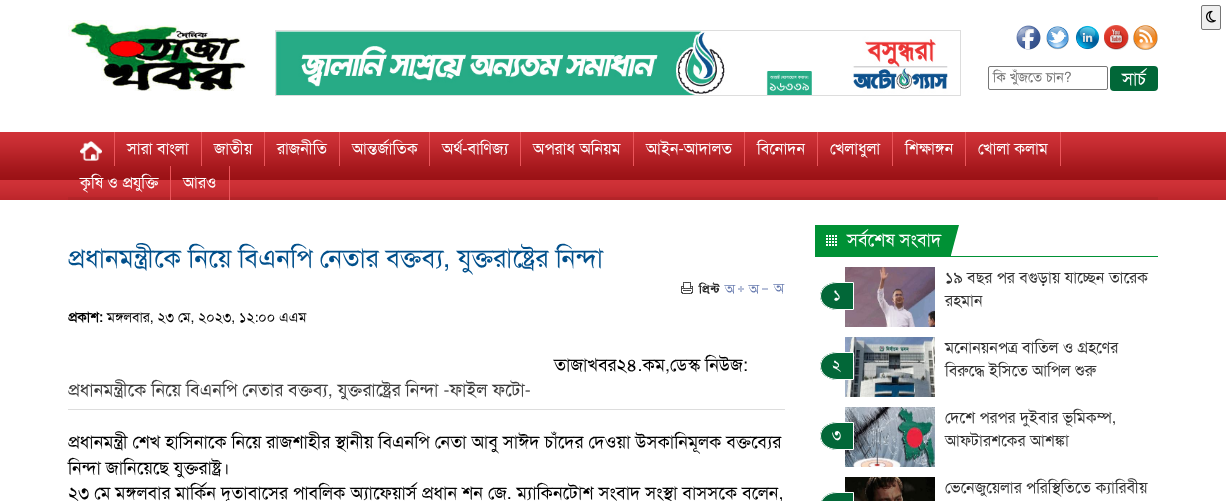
<?xml version="1.0" encoding="UTF-8"?>
<svg xmlns="http://www.w3.org/2000/svg" xmlns:xlink="http://www.w3.org/1999/xlink" width="1226" height="501">
  <rect width="100%" height="100%" fill="#ffffff" />
  <rect x="1201.5" y="5.5" width="19" height="24" rx="1.5" fill="#efefef" stroke="#767676" />
  <image x="1206" y="10" width="10" height="13" xlink:href="image1.png" />
  <image x="68" y="20" width="178" height="71" xlink:href="image2.png" />
  <rect x="275.5" y="30.5" width="685" height="65" fill="none" stroke="#dddddd" />
  <image x="276" y="31" width="672" height="64" xlink:href="image3.png" />
  <image x="1016" y="25" width="25" height="25" xlink:href="image4.png" />
  <image x="1046" y="26" width="23" height="24" xlink:href="image5.png" />
  <image x="1075" y="25" width="25" height="25" xlink:href="image6.png" />
  <image x="1104" y="25" width="25" height="25" xlink:href="image7.png" />
  <image x="1133" y="25" width="25" height="25" xlink:href="image8.png" />
  <rect x="988.5" y="66.5" width="119" height="23" rx="1.5" fill="none" stroke="#767676" />
  <rect x="1110" y="66" width="48" height="25" rx="4" fill="#016738" />
  <image x="0" y="132" width="1226" height="68" xlink:href="image9.png" />
  <rect x="68" y="197" width="1090" height="3" fill="#000000" fill-opacity="0.05" />
  <rect x="114" y="132" width="1" height="34" fill="#eb565b" />
  <image x="80" y="141" width="22" height="20" xlink:href="image10.png" />
  <rect x="201" y="132" width="1" height="34" fill="#eb565b" />
  <rect x="264" y="132" width="1" height="34" fill="#eb565b" />
  <rect x="339" y="132" width="1" height="34" fill="#eb565b" />
  <rect x="429" y="132" width="1" height="34" fill="#eb565b" />
  <rect x="520" y="132" width="1" height="34" fill="#eb565b" />
  <rect x="633" y="132" width="1" height="34" fill="#eb565b" />
  <rect x="744" y="132" width="1" height="34" fill="#eb565b" />
  <rect x="817" y="132" width="1" height="34" fill="#eb565b" />
  <rect x="892" y="132" width="1" height="34" fill="#eb565b" />
  <rect x="965" y="132" width="1" height="34" fill="#eb565b" />
  <rect x="1060" y="132" width="1" height="34" fill="#eb565b" />
  <rect x="170" y="166" width="1" height="34" fill="#eb565b" />
  <rect x="229" y="166" width="1" height="34" fill="#eb565b" />
  <image x="681" y="282" width="39" height="12" xlink:href="image11.png" />
  <image x="724" y="285" width="20" height="9" xlink:href="image12.png" />
  <image x="748" y="285" width="20" height="9" xlink:href="image13.png" />
  <image x="773" y="284" width="12" height="10" xlink:href="image14.png" />
  <rect x="68" y="409" width="717" height="1" fill="#dddddd" />
  <rect x="815" y="256" width="343" height="1" fill="#009135" />
  <rect x="815" y="225" width="136" height="31" fill="#009135" />
  <image x="826" y="235" width="11" height="11" xlink:href="image15.png" />
  <path d="M 951 225 h 8 l -8 30 z" fill="#009135" />
  <image x="845" y="267" width="90" height="60" xlink:href="image16.png" />
  <path d="M 837 282 h 17 v 28 h -17 c -9.5 0 -17 -6.5 -17 -14 c 0 -7.5 7.5 -14 17 -14 z" fill="#026738" />
  <path d="M 837 282.5 h 16.5 v 27 h -16.5 c -9 0 -16.5 -6 -16.5 -13.5 c 0 -7.5 7.5 -13.5 16.5 -13.5 z" fill="none" stroke="#ffffff" />
  <image x="845" y="337" width="90" height="60" xlink:href="image17.png" />
  <path d="M 837 352 h 17 v 28 h -17 c -9.5 0 -17 -6.5 -17 -14 c 0 -7.5 7.5 -14 17 -14 z" fill="#026738" />
  <path d="M 837 352.5 h 16.5 v 27 h -16.5 c -9 0 -16.5 -6 -16.5 -13.5 c 0 -7.5 7.5 -13.5 16.5 -13.5 z" fill="none" stroke="#ffffff" />
  <image x="845" y="407" width="90" height="60" xlink:href="image18.png" />
  <path d="M 837 422 h 17 v 28 h -17 c -9.5 0 -17 -6.5 -17 -14 c 0 -7.5 7.5 -14 17 -14 z" fill="#026738" />
  <path d="M 837 422.5 h 16.5 v 27 h -16.5 c -9 0 -16.5 -6 -16.5 -13.5 c 0 -7.5 7.5 -13.5 16.5 -13.5 z" fill="none" stroke="#ffffff" />
  <image x="845" y="477" width="90" height="24" xlink:href="image19.png" />
  <path d="M 837 492 h 17 v 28 h -17 c -9.5 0 -17 -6.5 -17 -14 c 0 -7.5 7.5 -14 17 -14 z" fill="#026738" />
  <path d="M 837 492.5 h 16.5 v 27 h -16.5 c -9 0 -16.5 -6 -16.5 -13.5 c 0 -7.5 7.5 -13.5 16.5 -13.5 z" fill="none" stroke="#ffffff" />
  <text x="993" y="82" style="font-family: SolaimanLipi; font-size: 14px; fill: #757575">কি খুঁজতে চান?</text>
  <text x="1122" y="85" style="font-family: SolaimanLipi; font-size: 18px; fill: #ffffff">সার্চ</text>
  <text x="127" y="154" style="font-family: SolaimanLipi; font-size: 16px; fill: #ffffff">সারা বাংলা</text>
  <text x="214" y="154" style="font-family: SolaimanLipi; font-size: 16px; fill: #ffffff">জাতীয়</text>
  <text x="277" y="154" style="font-family: SolaimanLipi; font-size: 16px; fill: #ffffff">রাজনীতি</text>
  <text x="352" y="154" style="font-family: SolaimanLipi; font-size: 16px; fill: #ffffff">আন্তর্জাতিক</text>
  <text x="442" y="154" style="font-family: SolaimanLipi; font-size: 16px; fill: #ffffff">অর্থ-বাণিজ্য</text>
  <text x="533" y="154" style="font-family: SolaimanLipi; font-size: 16px; fill: #ffffff">অপরাধ অনিয়ম</text>
  <text x="646" y="154" style="font-family: SolaimanLipi; font-size: 16px; fill: #ffffff">আইন-আদালত</text>
  <text x="757" y="154" style="font-family: SolaimanLipi; font-size: 16px; fill: #ffffff">বিনোদন</text>
  <text x="830" y="154" style="font-family: SolaimanLipi; font-size: 16px; fill: #ffffff">খেলাধুলা</text>
  <text x="905" y="154" style="font-family: SolaimanLipi; font-size: 16px; fill: #ffffff">শিক্ষাঙ্গন</text>
  <text x="978" y="154" style="font-family: SolaimanLipi; font-size: 16px; fill: #ffffff">খোলা কলাম</text>
  <text x="80" y="188" style="font-family: SolaimanLipi; font-size: 16px; fill: #ffffff">কৃষি ও প্রযুক্তি</text>
  <text x="183" y="188" style="font-family: SolaimanLipi; font-size: 16px; fill: #ffffff">আরও</text>
  <text x="68" y="267" style="font-family: SolaimanLipi; font-size: 26px; fill: #004f8b">প্রধানমন্ত্রীকে নিয়ে বিএনপি নেতার বক্তব্য, যুক্তরাষ্ট্রের নিন্দা</text>
  <text x="68" y="322" style="font-family: SolaimanLipi; font-size: 14px; font-weight: bold; fill: #000000">প্রকাশ:</text>
  <text x="107" y="322" style="font-family: SolaimanLipi; font-size: 14px; fill: #000000">মঙ্গলবার, ২৩ মে, ২০২৩, ১২:০০ এএম</text>
  <text x="554" y="371" style="font-family: SolaimanLipi; font-size: 18px; fill: #000000">তাজাখবর২৪.কম,ডেস্ক নিউজ:</text>
  <text x="68" y="396" style="font-family: SolaimanLipi; font-size: 18px; fill: #3e3e3e">প্রধানমন্ত্রীকে নিয়ে বিএনপি নেতার বক্তব্য, যুক্তরাষ্ট্রের নিন্দা -ফাইল ফটো-</text>
  <text x="68" y="448" style="font-family: SolaimanLipi; font-size: 18px; fill: #000000">প্রধানমন্ত্রী শেখ হাসিনাকে নিয়ে রাজশাহীর স্থানীয় বিএনপি নেতা আবু সাঈদ চাঁদের দেওয়া উসকানিমূলক বক্তব্যের</text>
  <text x="68" y="474" style="font-family: SolaimanLipi; font-size: 18px; fill: #000000">নিন্দা জানিয়েছে যুক্তরাষ্ট্র।</text>
  <text x="68" y="499" style="font-family: SolaimanLipi; font-size: 18px; fill: #000000">২৩ মে মঙ্গলবার মার্কিন দূতাবাসের পাবলিক অ্যাফেয়ার্স প্রধান শন জে. ম্যাকিনটোশ সংবাদ সংস্থা বাসসকে বলেন,</text>
  <text x="847" y="246" style="font-family: SolaimanLipi; font-size: 18px; fill: #ffffff">সর্বশেষ সংবাদ</text>
  <text x="833" y="300" style="font-family: SolaimanLipi; font-size: 15px; fill: #ffffff">১</text>
  <text x="945" y="283" style="font-family: SolaimanLipi; font-size: 16px; fill: #333333">১৯ বছর পর বগুড়ায় যাচ্ছেন তারেক</text>
  <text x="945" y="306" style="font-family: SolaimanLipi; font-size: 16px; fill: #333333">রহমান</text>
  <text x="832" y="370" style="font-family: SolaimanLipi; font-size: 15px; fill: #ffffff">২</text>
  <text x="945" y="353" style="font-family: SolaimanLipi; font-size: 16px; fill: #333333">মনোনয়নপত্র বাতিল ও গ্রহণের</text>
  <text x="945" y="376" style="font-family: SolaimanLipi; font-size: 16px; fill: #333333">বিরুদ্ধে ইসিতে আপিল শুরু</text>
  <text x="832" y="440" style="font-family: SolaimanLipi; font-size: 15px; fill: #ffffff">৩</text>
  <text x="945" y="423" style="font-family: SolaimanLipi; font-size: 16px; fill: #333333">দেশে পরপর দুইবার ভূমিকম্প,</text>
  <text x="945" y="446" style="font-family: SolaimanLipi; font-size: 16px; fill: #333333">আফটারশকের আশঙ্কা</text>
  <text x="945" y="493" style="font-family: SolaimanLipi; font-size: 16px; fill: #333333">ভেনেজুয়েলার পরিস্থিতিতে ক্যারিবীয়</text>
</svg>
